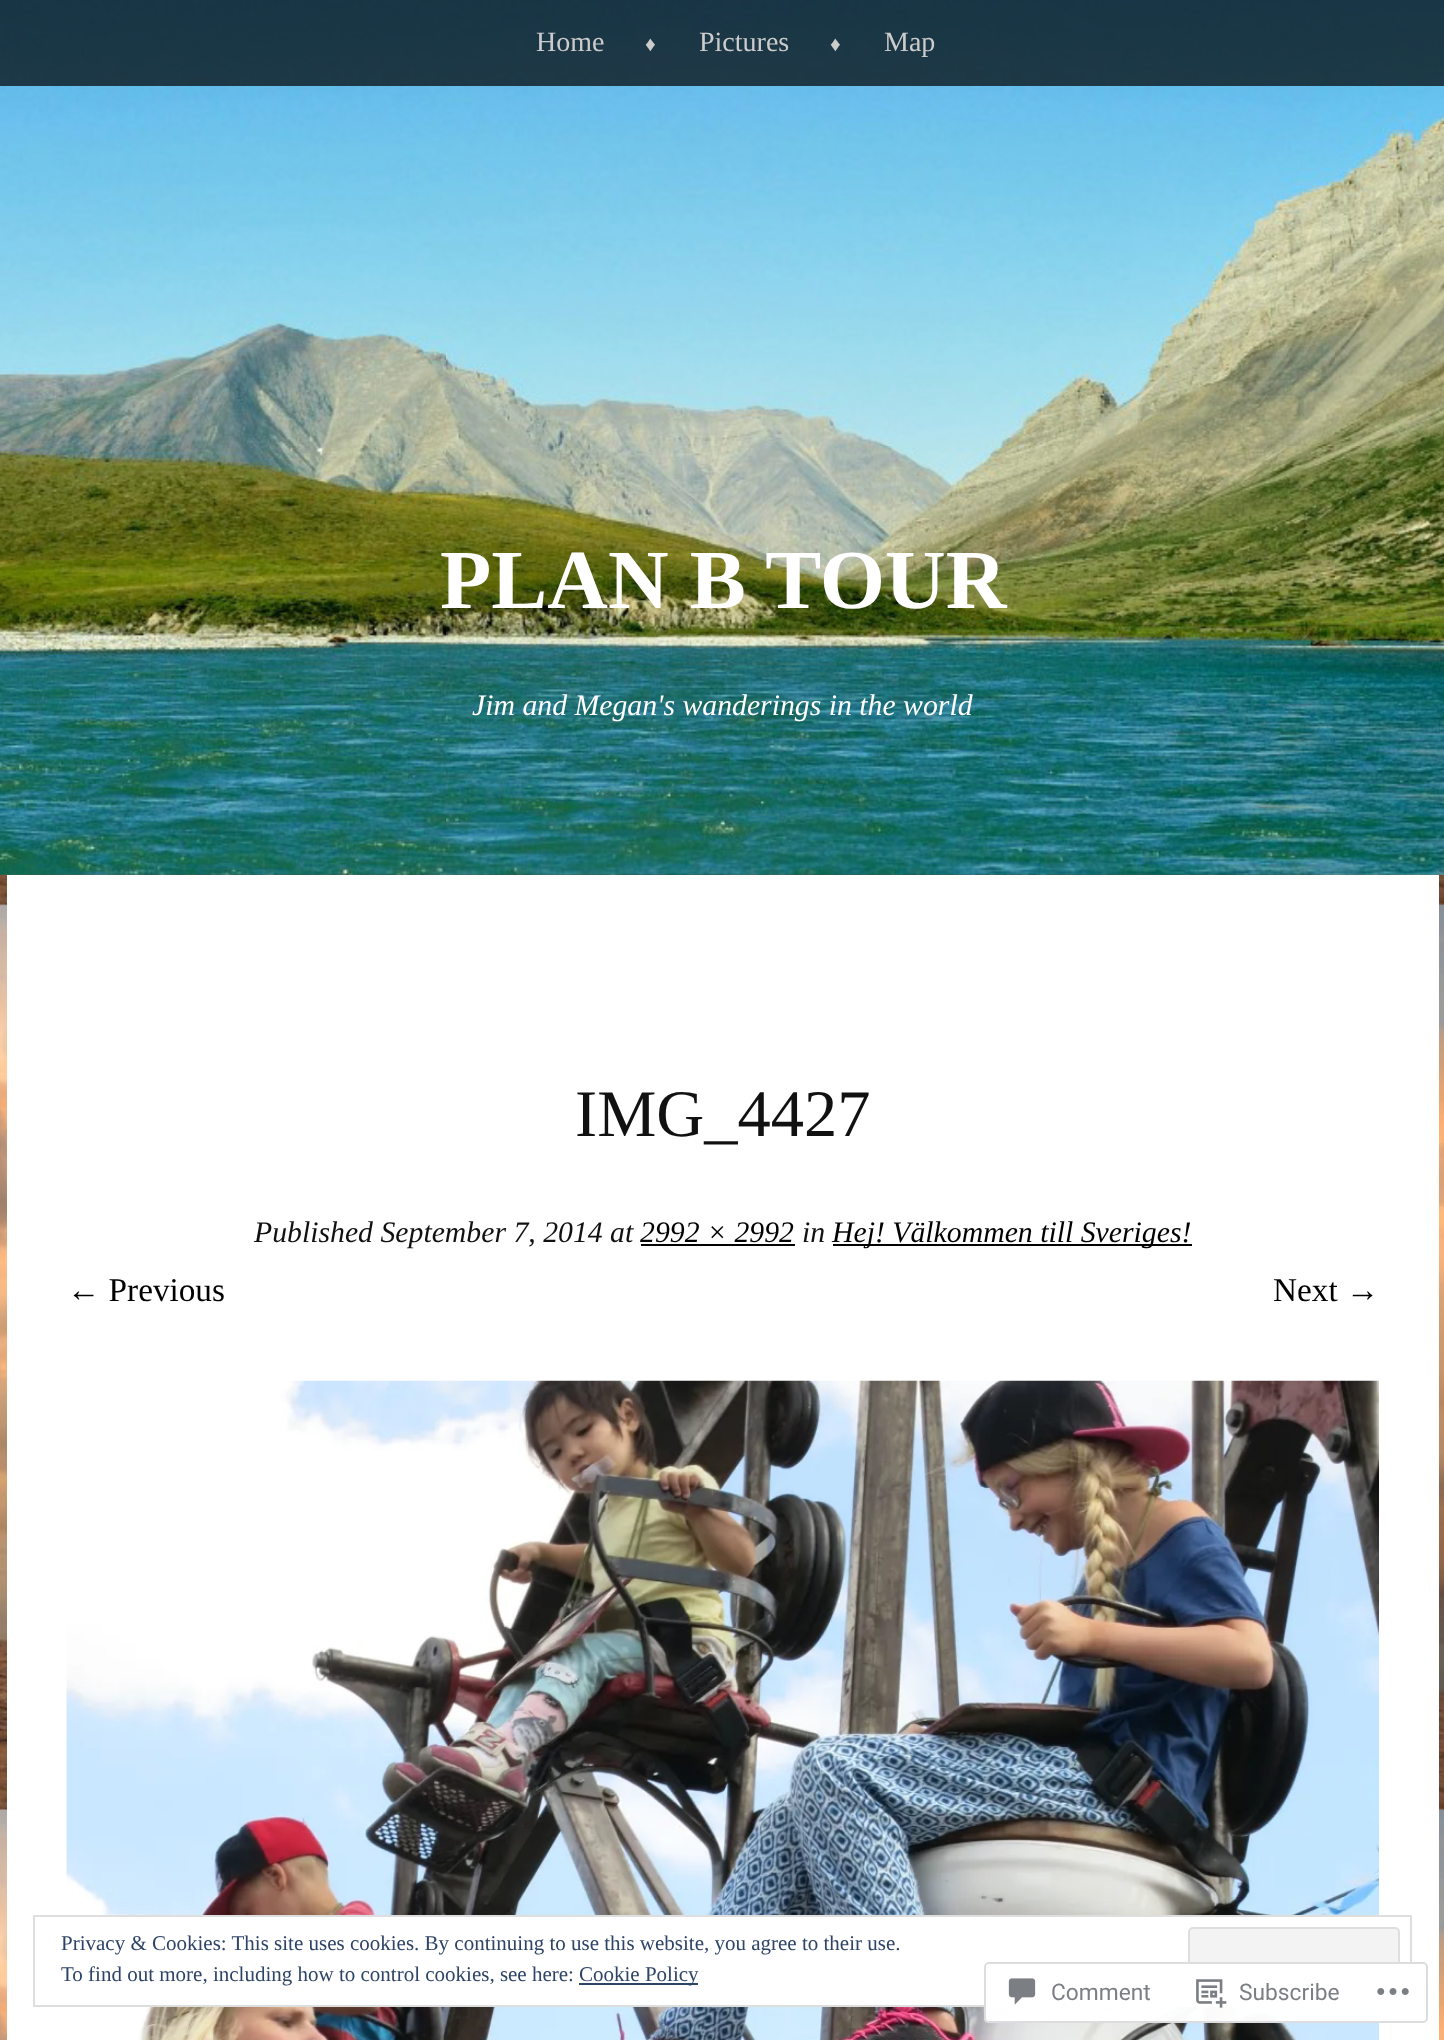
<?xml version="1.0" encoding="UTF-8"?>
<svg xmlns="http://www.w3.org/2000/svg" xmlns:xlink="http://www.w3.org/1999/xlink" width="1444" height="2040">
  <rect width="100%" height="100%" fill="#ffffff" />
  <image x="0" y="874" width="1444" height="1166" xlink:href="image1.png" />
  <image x="0" y="0" width="1444" height="875" xlink:href="image2.png" />
  <rect width="1444" height="86" fill="#000000" fill-opacity="0.7" />
  <rect x="7" y="875" width="1432" height="1165" fill="#ffffff" />
  <rect x="641" y="1244" width="154" height="2" fill="#000000" />
  <rect x="833" y="1244" width="359" height="2" fill="#000000" />
  <image x="66" y="1380" width="1313" height="660" xlink:href="image3.png" />
  <rect x="102" y="1917" width="1277" height="88" fill="#ffffff" />
  <rect x="34" y="1916" width="1377" height="90" fill="none" stroke="#dedede" stroke-width="2" />
  <rect x="1189" y="1928" width="210" height="66" rx="4" fill="#f3f3f3" stroke="#dedede" stroke-width="2" />
  <rect x="579" y="1983" width="119" height="2" fill="#2e4467" />
  <rect x="984" y="1962" width="444" height="61" rx="5" fill="#ffffff" fill-opacity="0.98" />
  <rect x="985" y="1963" width="442" height="59" rx="4" fill="none" stroke="#dcdcde" stroke-opacity="0.98" stroke-width="2" />
  <image x="1008" y="1978" width="28" height="27" xlink:href="image4.png" />
  <image x="1196" y="1979" width="31" height="29" xlink:href="image5.png" />
  <image x="1377" y="1988" width="32" height="7" xlink:href="image6.png" />
  <text x="536" y="51" style="font-family: Liberation Serif; font-size: 28px; fill: #cccccc">Home</text>
  <text x="645" y="51" style="font-family: Liberation Serif; font-size: 21px; fill: #cccccc">♦</text>
  <text x="699" y="51" style="font-family: Liberation Serif; font-size: 28px; fill: #cccccc">Pictures</text>
  <text x="830" y="51" style="font-family: Liberation Serif; font-size: 21px; fill: #cccccc">♦</text>
  <text x="884" y="51" style="font-family: Liberation Serif; font-size: 28px; fill: #cccccc">Map</text>
  <text x="440" y="608" style="font-family: Liberation Serif; font-size: 84px; font-weight: bold; fill: #ffffff">PLAN B TOUR</text>
  <text x="472" y="715" style="font-family: Liberation Serif; font-size: 29.75px; font-style: italic; fill: #ffffff">Jim and Megan's wanderings in the world</text>
  <text x="575" y="1136" style="font-family: Liberation Serif; font-size: 66.5px; fill: #111111">IMG_4427</text>
  <text x="254" y="1242" style="font-family: Liberation Serif; font-size: 29.75px; font-style: italic; fill: #111111">Published September 7, 2014 at</text>
  <text x="640" y="1242" style="font-family: Liberation Serif; font-size: 29.75px; font-style: italic; fill: #000000">2992 × 2992</text>
  <text x="802" y="1242" style="font-family: Liberation Serif; font-size: 29.75px; font-style: italic; fill: #111111">in</text>
  <text x="832" y="1242" style="font-family: Liberation Serif; font-size: 29.75px; font-style: italic; fill: #000000">Hej! Välkommen till Sveriges!</text>
  <text x="67" y="1301" style="font-family: Liberation Serif; font-size: 33.25px; fill: #000000">← Previous</text>
  <text x="1273" y="1301" style="font-family: Liberation Serif; font-size: 33.25px; fill: #000000">Next →</text>
  <text x="61" y="1950" style="font-family: Liberation Serif; font-size: 21px; fill: #2e4467">Privacy &amp; Cookies: This site uses cookies. By continuing to use this website, you agree to their use.</text>
  <text x="61" y="1981" style="font-family: Liberation Serif; font-size: 21px; fill: #2e4467">To find out more, including how to control cookies, see here:</text>
  <text x="579" y="1981" style="font-family: Liberation Serif; font-size: 21px; fill: #2e4467">Cookie Policy</text>
  <text x="1051" y="2000" style="font-family: Roboto; font-size: 22.75px; fill: #7b7f85">Comment</text>
  <text x="1239" y="2000" style="font-family: Roboto; font-size: 22.75px; fill: #7b7f85">Subscribe</text>
</svg>
